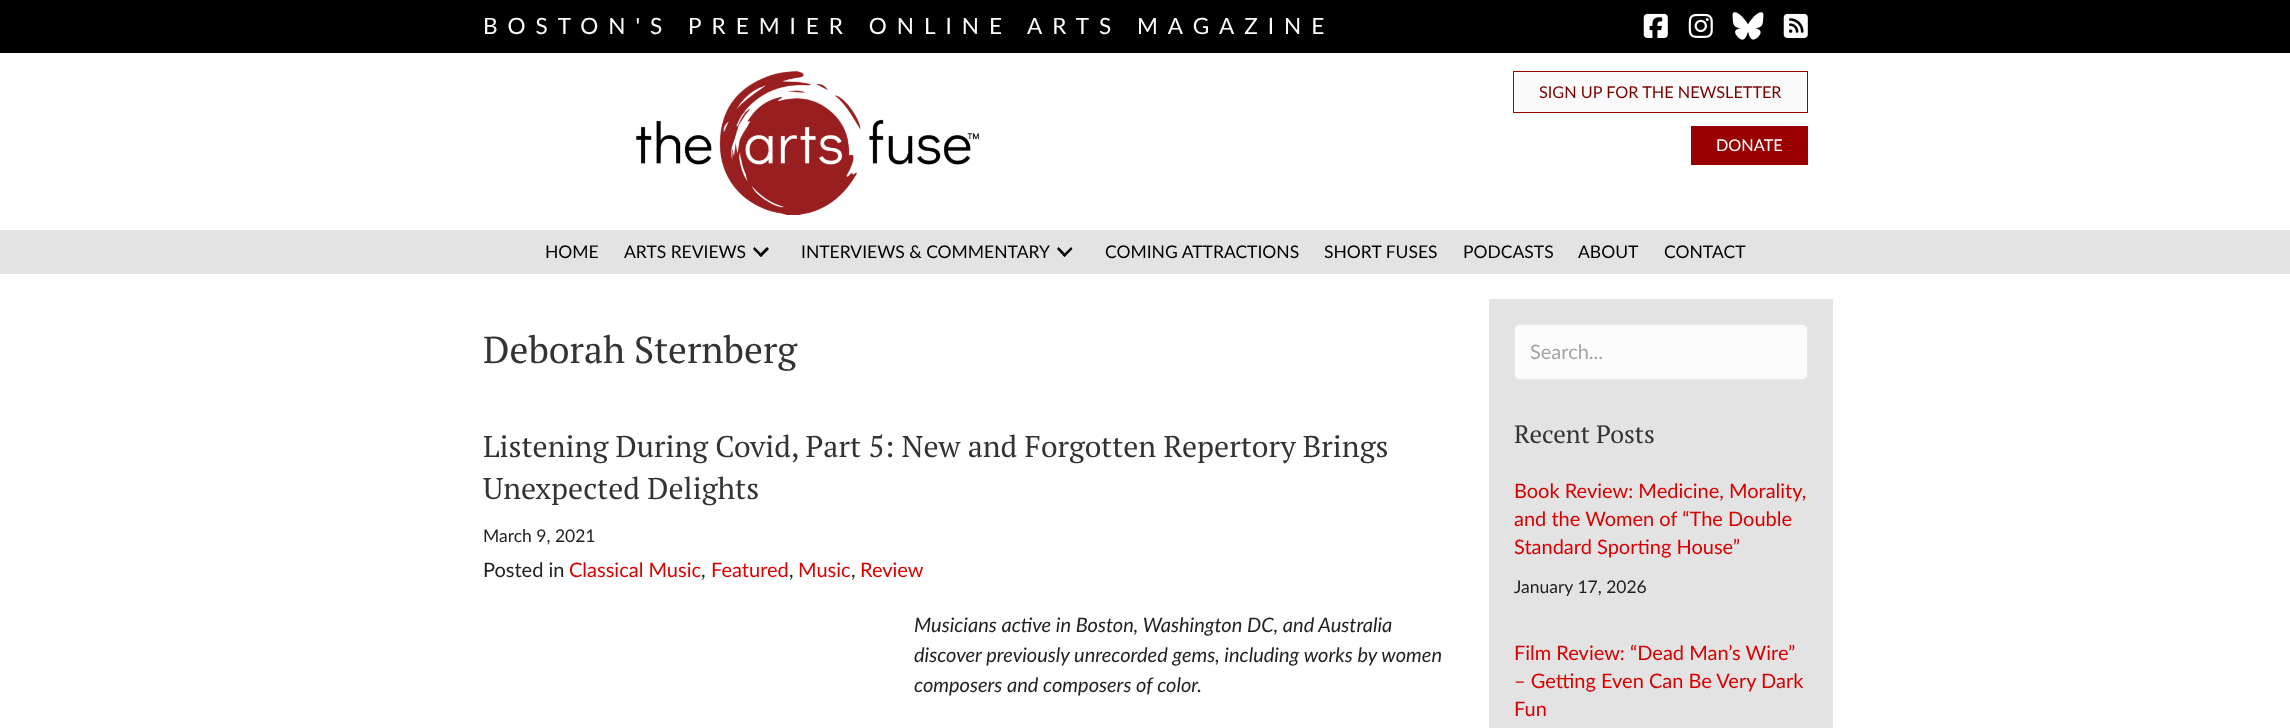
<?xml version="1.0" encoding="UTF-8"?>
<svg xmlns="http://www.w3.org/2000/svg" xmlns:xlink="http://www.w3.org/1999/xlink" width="2290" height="728">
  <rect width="100%" height="100%" fill="#ffffff" />
  <rect width="2290" height="53" fill="#000000" />
  <image x="1643" y="13" width="25" height="25" xlink:href="image1.png" />
  <image x="1688" y="13" width="25" height="25" xlink:href="image2.png" />
  <image x="1732" y="12" width="32" height="28" xlink:href="image3.png" />
  <image x="1783" y="13" width="25" height="25" xlink:href="image4.png" />
  <image x="636" y="71" width="343" height="144" xlink:href="image5.png" />
  <rect x="1513.5" y="71.5" width="294" height="41" fill="#fafafa" stroke="#990000" />
  <rect x="1691" y="126" width="117" height="39" fill="#990000" />
  <rect y="230" width="2290" height="44" fill="#e3e3e3" />
  <path d="M 767 247 l 2 2 l -8 8 l -2 -2 z" fill="#000000" />
  <path d="M 754.5 247 l 8 8 l -1.5 2 l -8 -8 z" fill="#000000" />
  <path d="M 1071 247 l 1.5 2 l -8 8 l -1.5 -2 z" fill="#000000" />
  <path d="M 1058.5 247 l 8 8 l -2 2 l -7.5 -8 z" fill="#000000" />
  <rect x="1489" y="299" width="344" height="429" fill="#e3e3e3" />
  <rect x="1514.5" y="324.5" width="293" height="55" rx="4.5" fill="#fcfcfc" stroke="#e6e6e6" />
  <rect x="1514" y="625" width="294" height="1" fill="#e6e6e6" />
  <text x="483" y="34" style="font-family: Lato; font-size: 22.5px; letter-spacing: 10px; fill: #ffffff">BOSTON'S PREMIER ONLINE ARTS MAGAZINE</text>
  <text x="1539" y="98" style="font-family: Lato; font-size: 16.25px; fill: #7a0000">SIGN UP FOR THE NEWSLETTER</text>
  <text x="1716" y="151" style="font-family: Lato; font-size: 16.25px; fill: #ffffff">DONATE</text>
  <text x="545" y="258" style="font-family: Lato; font-size: 17.5px; fill: #000000">HOME</text>
  <text x="624" y="258" style="font-family: Lato; font-size: 17.5px; fill: #000000">ARTS REVIEWS</text>
  <text x="801" y="258" style="font-family: Lato; font-size: 17.5px; fill: #000000">INTERVIEWS &amp; COMMENTARY</text>
  <text x="1105" y="258" style="font-family: Lato; font-size: 17.5px; fill: #000000">COMING ATTRACTIONS</text>
  <text x="1324" y="258" style="font-family: Lato; font-size: 17.5px; fill: #000000">SHORT FUSES</text>
  <text x="1463" y="258" style="font-family: Lato; font-size: 17.5px; fill: #000000">PODCASTS</text>
  <text x="1578" y="258" style="font-family: Lato; font-size: 17.5px; fill: #000000">ABOUT</text>
  <text x="1664" y="258" style="font-family: Lato; font-size: 17.5px; fill: #000000">CONTACT</text>
  <text x="483" y="363" style="font-family: PT Serif; font-size: 37.5px; fill: #333333">Deborah Sternberg</text>
  <text x="483" y="457" style="font-family: PT Serif; font-size: 30px; fill: #333333">Listening During Covid, Part 5: New and Forgotten Repertory Brings</text>
  <text x="483" y="499" style="font-family: PT Serif; font-size: 30px; fill: #333333">Unexpected Delights</text>
  <text x="483" y="542" style="font-family: Lato; font-size: 17.5px; fill: #212121">March 9, 2021</text>
  <text x="483" y="577" style="font-family: Lato; font-size: 20px; fill: #212121">Posted in</text>
  <text x="569" y="577" style="font-family: Lato; font-size: 20px; fill: #db0000">Classical Music</text>
  <text x="701" y="577" style="font-family: Lato; font-size: 20px; fill: #212121">,</text>
  <text x="711" y="577" style="font-family: Lato; font-size: 20px; fill: #db0000">Featured</text>
  <text x="789" y="577" style="font-family: Lato; font-size: 20px; fill: #212121">,</text>
  <text x="798" y="577" style="font-family: Lato; font-size: 20px; fill: #db0000">Music</text>
  <text x="851" y="577" style="font-family: Lato; font-size: 20px; fill: #212121">,</text>
  <text x="860" y="577" style="font-family: Lato; font-size: 20px; fill: #db0000">Review</text>
  <text x="914" y="632" style="font-family: Lato; font-size: 20px; font-style: italic; fill: #212121">Musicians active in Boston, Washington DC, and Australia</text>
  <text x="914" y="662" style="font-family: Lato; font-size: 20px; font-style: italic; fill: #212121">discover previously unrecorded gems, including works by women</text>
  <text x="914" y="692" style="font-family: Lato; font-size: 20px; font-style: italic; fill: #212121">composers and composers of color.</text>
  <text x="1530" y="359" style="font-family: Lato; font-size: 20px; fill: #a4a4a4">Search...</text>
  <text x="1514" y="443" style="font-family: PT Serif; font-size: 25px; fill: #333333">Recent Posts</text>
  <text x="1514" y="498" style="font-family: Lato; font-size: 20px; fill: #db0000">Book Review: Medicine, Morality,</text>
  <text x="1514" y="526" style="font-family: Lato; font-size: 20px; fill: #db0000">and the Women of “The Double</text>
  <text x="1514" y="554" style="font-family: Lato; font-size: 20px; fill: #db0000">Standard Sporting House”</text>
  <text x="1514" y="593" style="font-family: Lato; font-size: 17.5px; fill: #212121">January 17, 2026</text>
  <text x="1514" y="660" style="font-family: Lato; font-size: 20px; fill: #db0000">Film Review: “Dead Man’s Wire”</text>
  <text x="1514" y="688" style="font-family: Lato; font-size: 20px; fill: #db0000">– Getting Even Can Be Very Dark</text>
  <text x="1514" y="716" style="font-family: Lato; font-size: 20px; fill: #db0000">Fun</text>
</svg>
